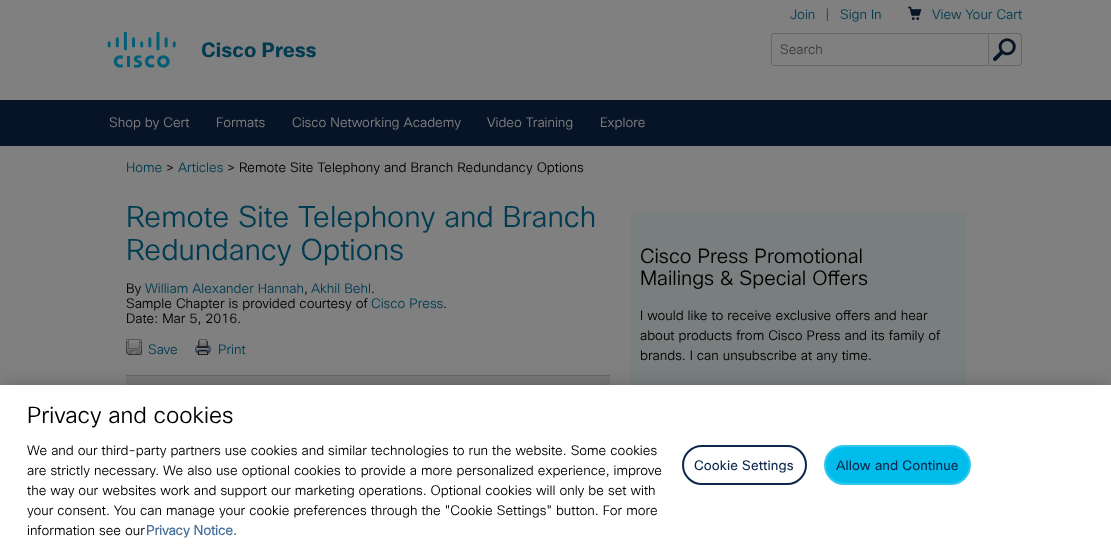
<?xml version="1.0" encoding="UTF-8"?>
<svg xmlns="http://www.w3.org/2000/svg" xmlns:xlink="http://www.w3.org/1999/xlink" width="1111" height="549">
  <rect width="100%" height="100%" fill="#808080" />
  <image x="107" y="31" width="69" height="37" xlink:href="image1.png" />
  <image x="908" y="6" width="14" height="14" xlink:href="image2.png" />
  <rect x="771.5" y="33.5" width="217" height="32" rx="2.5" fill="none" stroke="#666666" />
  <path d="M 988 33 h 30 c 2 0 4 2 4 4 v 25 c 0 2 -2 4 -4 4 h -30 z m 0 1 h 30 c 1.5 0 3 1.5 3 3 v 25 c 0 1.5 -1.5 3 -3 3 h -30 z" fill="#666666" fill-rule="evenodd" />
  <rect y="100" width="1111" height="46" fill="#071427" />
  <image x="126" y="339" width="16" height="16" xlink:href="image3.png" />
  <image x="195" y="339" width="16" height="16" xlink:href="image4.png" />
  <rect x="126" y="376" width="484" height="9" fill="#777777" />
  <rect x="126" y="375" width="484" height="1" fill="#666666" />
  <rect x="630" y="213" width="336" height="172" fill="#797e7f" />
  <rect y="385" width="1111" height="164" fill="#000000" fill-opacity="0.2" filter="blur(9px)" />
  <rect y="385" width="1111" height="164" fill="#ffffff" />
  <rect x="683" y="446" width="123" height="38" rx="19" fill="none" stroke="#0d274d" stroke-width="2" />
  <rect x="825" y="446" width="145" height="38" rx="19" fill="#00bceb" stroke="#33c9ef" stroke-width="2" />
  <text x="201" y="57" style="font-family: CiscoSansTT; font-size: 20px; font-weight: bold; fill: #013b51">Cisco Press</text>
  <text x="790" y="19" style="font-family: CiscoSansTT; font-size: 13.35px; font-weight: 300; fill: #013b51">Join</text>
  <text x="825" y="19" style="font-family: CiscoSansTT; font-size: 13.35px; font-weight: 300; fill: #3f3333">|</text>
  <text x="840" y="19" style="font-family: CiscoSansTT; font-size: 13.35px; font-weight: 300; fill: #013b51">Sign In</text>
  <text x="932" y="19" style="font-family: CiscoSansTT; font-size: 13.35px; font-weight: 300; fill: #013b51">View Your Cart</text>
  <text x="780" y="54" style="font-family: CiscoSansTT; font-size: 13.35px; font-weight: 300; fill: #3b3b3b">Search</text>
  <text x="993" y="61" style="font-family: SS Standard; font-size: 22.75px; fill: #071427">🔎</text>
  <text x="109" y="127" style="font-family: CiscoSansTT; font-size: 13.35px; font-weight: 300; fill: #808080">Shop by Cert</text>
  <text x="216" y="127" style="font-family: CiscoSansTT; font-size: 13.35px; font-weight: 300; fill: #808080">Formats</text>
  <text x="292" y="127" style="font-family: CiscoSansTT; font-size: 13.35px; font-weight: 300; fill: #808080">Cisco Networking Academy</text>
  <text x="487" y="127" style="font-family: CiscoSansTT; font-size: 13.35px; font-weight: 300; fill: #808080">Video Training</text>
  <text x="600" y="127" style="font-family: CiscoSansTT; font-size: 13.35px; font-weight: 300; fill: #808080">Explore</text>
  <text x="126" y="172" style="font-family: CiscoSansTT; font-size: 13.35px; font-weight: 300; fill: #013b51">Home</text>
  <text x="166" y="172" style="font-family: CiscoSansTT; font-size: 13.35px; font-weight: 300; fill: #000000">&gt;</text>
  <text x="178" y="172" style="font-family: CiscoSansTT; font-size: 13.35px; font-weight: 300; fill: #013b51">Articles</text>
  <text x="227" y="172" style="font-family: CiscoSansTT; font-size: 13.35px; font-weight: 300; fill: #000000">&gt; Remote Site Telephony and Branch Redundancy Options</text>
  <text x="126" y="227" style="font-family: CiscoSansTT; font-size: 29.3px; font-weight: 300; fill: #013b51">Remote Site Telephony and Branch</text>
  <text x="126" y="260" style="font-family: CiscoSansTT; font-size: 29.3px; font-weight: 300; fill: #013b51">Redundancy Options</text>
  <text x="126" y="293" style="font-family: CiscoSansTT; font-size: 13.35px; font-weight: 300; fill: #000000">By</text>
  <text x="145" y="293" style="font-family: CiscoSansTT; font-size: 13.35px; font-weight: 300; fill: #013b51">William Alexander Hannah</text>
  <text x="304" y="293" style="font-family: CiscoSansTT; font-size: 13.35px; font-weight: 300; fill: #000000">,</text>
  <text x="311" y="293" style="font-family: CiscoSansTT; font-size: 13.35px; font-weight: 300; fill: #013b51">Akhil Behl</text>
  <text x="371" y="293" style="font-family: CiscoSansTT; font-size: 13.35px; font-weight: 300; fill: #000000">.</text>
  <text x="126" y="308" style="font-family: CiscoSansTT; font-size: 13.35px; font-weight: 300; fill: #000000">Sample Chapter is provided courtesy of</text>
  <text x="371" y="308" style="font-family: CiscoSansTT; font-size: 13.35px; font-weight: 300; fill: #013b51">Cisco Press</text>
  <text x="443" y="308" style="font-family: CiscoSansTT; font-size: 13.35px; font-weight: 300; fill: #000000">.</text>
  <text x="126" y="323" style="font-family: CiscoSansTT; font-size: 13.35px; font-weight: 300; fill: #000000">Date: Mar 5, 2016.</text>
  <text x="148" y="354" style="font-family: CiscoSansTT; font-size: 13.35px; font-weight: 300; fill: #013b51">Save</text>
  <text x="218" y="354" style="font-family: CiscoSansTT; font-size: 13.35px; font-weight: 300; fill: #013b51">Print</text>
  <text x="640" y="263" style="font-family: CiscoSansTT; font-size: 20px; font-weight: 300; fill: #000000">Cisco Press Promotional</text>
  <text x="640" y="285" style="font-family: CiscoSansTT; font-size: 20px; font-weight: 300; fill: #000000">Mailings &amp; Special Offers</text>
  <text x="640" y="320" style="font-family: CiscoSansTT; font-size: 13.35px; font-weight: 300; fill: #000000">I would like to receive exclusive offers and hear</text>
  <text x="640" y="340" style="font-family: CiscoSansTT; font-size: 13.35px; font-weight: 300; fill: #000000">about products from Cisco Press and its family of</text>
  <text x="640" y="360" style="font-family: CiscoSansTT; font-size: 13.35px; font-weight: 300; fill: #000000">brands. I can unsubscribe at any time.</text>
  <text x="27" y="423" style="font-family: CiscoSansTT; font-size: 22.75px; font-weight: 300; fill: #000000">Privacy and cookies</text>
  <text x="27" y="455" style="font-family: CiscoSansTT; font-size: 13.35px; font-weight: 300; fill: #000000">We and our third-party partners use cookies and similar technologies to run the website. Some cookies</text>
  <text x="27" y="475" style="font-family: CiscoSansTT; font-size: 13.35px; font-weight: 300; fill: #000000">are strictly necessary. We also use optional cookies to provide a more personalized experience, improve</text>
  <text x="27" y="495" style="font-family: CiscoSansTT; font-size: 13.35px; font-weight: 300; fill: #000000">the way our websites work and support our marketing operations. Optional cookies will only be set with</text>
  <text x="27" y="515" style="font-family: CiscoSansTT; font-size: 13.35px; font-weight: 300; fill: #000000">your consent. You can manage your cookie preferences through the "Cookie Settings" button. For more</text>
  <text x="27" y="535" style="font-family: CiscoSansTT; font-size: 13.35px; font-weight: 300; fill: #000000">information see our</text>
  <text x="146" y="535" style="font-family: 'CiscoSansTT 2'; font-size: 13.35px; font-weight: bold; fill: #447099">Privacy Notice.</text>
  <text x="694" y="470" style="font-family: CiscoSansTT; font-size: 13.35px; letter-spacing: 0.1px; fill: #0d274d">Cookie Settings</text>
  <text x="836" y="470" style="font-family: CiscoSansTT; font-size: 13.35px; letter-spacing: 0.1px; fill: #0d274d">Allow and Continue</text>
</svg>
